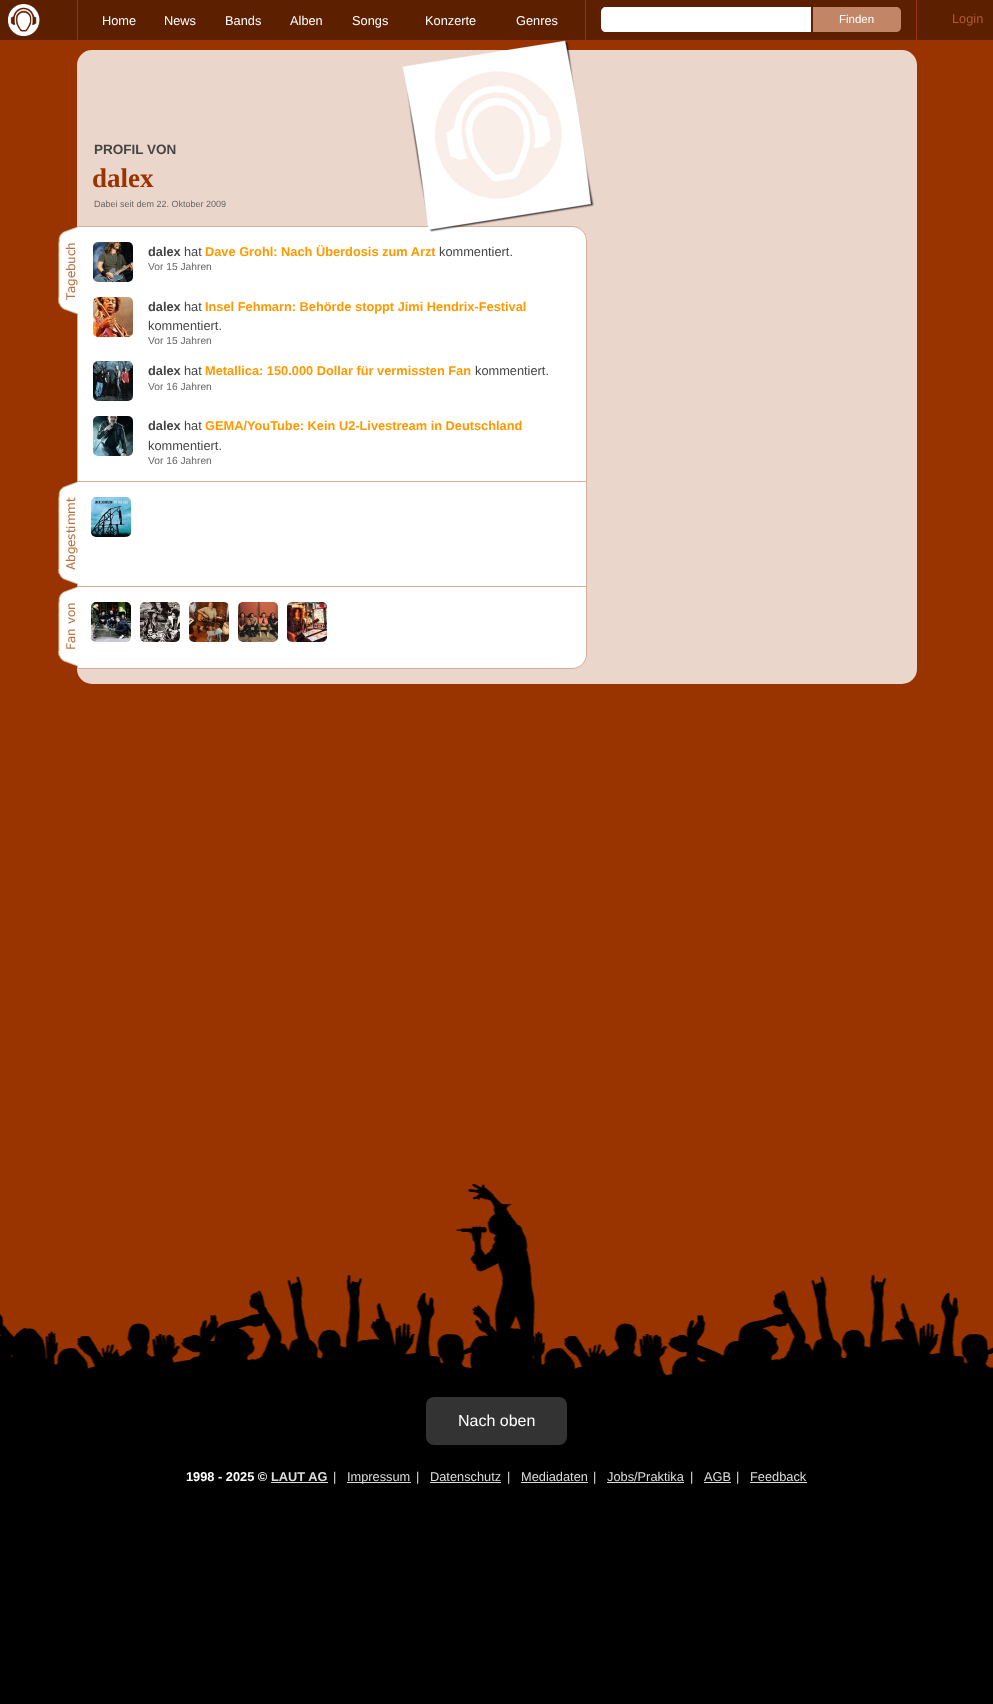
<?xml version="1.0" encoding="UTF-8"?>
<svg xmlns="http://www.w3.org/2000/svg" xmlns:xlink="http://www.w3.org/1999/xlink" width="993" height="1704">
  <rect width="100%" height="100%" fill="#993300" />
  <rect width="993" height="40" fill="#5c1f00" />
  <image x="8" y="4" width="32" height="32" xlink:href="image1.png" />
  <rect x="77" width="1" height="40" fill="#993300" />
  <rect x="916" width="1" height="40" fill="#993300" />
  <rect x="585" width="1" height="40" fill="#993300" />
  <path d="M 606 7 h 205 v 25 h -205 c -3 0 -5 -2 -5 -5 v -15 c 0 -3 2 -5 5 -5 z" fill="#ffffff" />
  <path d="M 813 7 h 83 c 3 0 5 2 5 5 v 15 c 0 3 -2 5 -5 5 h -83 z" fill="#c28566" />
  <rect x="77" y="50" width="840" height="634" rx="15" fill="#ebd6cc" />
  <path d="M 77.5 226.5 h 494.5 c 8 0 14.5 6.5 14.5 14.5 v 413 c 0 8 -6.5 14.5 -14.5 14.5 h -494.5 z" fill="#ffffff" stroke="#d6ad99" />
  <image x="402" y="40" width="192" height="192" xlink:href="image2.png" />
  <image x="58" y="226" width="20" height="89" xlink:href="image3.png" />
  <image x="93" y="242" width="40" height="40" xlink:href="image4.png" />
  <image x="93" y="297" width="40" height="40" xlink:href="image5.png" />
  <image x="93" y="361" width="40" height="40" xlink:href="image6.png" />
  <image x="93" y="416" width="40" height="40" xlink:href="image7.png" />
  <rect x="78" y="481" width="508" height="1" fill="#d6ad99" />
  <image x="58" y="481" width="20" height="104" xlink:href="image8.png" />
  <image x="91" y="497" width="40" height="40" xlink:href="image9.png" />
  <rect x="78" y="586" width="508" height="1" fill="#d6ad99" />
  <image x="58" y="586" width="20" height="81" xlink:href="image10.png" />
  <image x="91" y="602" width="40" height="40" xlink:href="image11.png" />
  <image x="140" y="602" width="40" height="40" xlink:href="image12.png" />
  <image x="189" y="602" width="40" height="40" xlink:href="image13.png" />
  <image x="238" y="602" width="40" height="40" xlink:href="image14.png" />
  <image x="287" y="602" width="40" height="40" xlink:href="image15.png" />
  <image x="0" y="1184" width="993" height="520" xlink:href="image16.png" />
  <rect x="426" y="1397" width="141" height="48" rx="8" fill="#333333" />
  <rect x="271" y="1482" width="57" height="1" fill="#dddddd" />
  <rect x="347" y="1482" width="64" height="1" fill="#dddddd" />
  <rect x="430" y="1482" width="71" height="1" fill="#dddddd" />
  <rect x="521" y="1482" width="67" height="1" fill="#dddddd" />
  <rect x="607" y="1482" width="77" height="1" fill="#dddddd" />
  <rect x="704" y="1482" width="27" height="1" fill="#dddddd" />
  <rect x="750" y="1482" width="57" height="1" fill="#dddddd" />
  <text x="102" y="25" style="font-family: Liberation Sans; font-size: 12.8px; fill: #ffffff">Home</text>
  <text x="164" y="25" style="font-family: Liberation Sans; font-size: 12.8px; fill: #ffffff">News</text>
  <text x="225" y="25" style="font-family: Liberation Sans; font-size: 12.8px; fill: #ffffff">Bands</text>
  <text x="290" y="25" style="font-family: Liberation Sans; font-size: 12.8px; fill: #ffffff">Alben</text>
  <text x="352" y="25" style="font-family: Liberation Sans; font-size: 12.8px; fill: #ffffff">Songs</text>
  <text x="425" y="25" style="font-family: Liberation Sans; font-size: 12.8px; fill: #ffffff">Konzerte</text>
  <text x="516" y="25" style="font-family: Liberation Sans; font-size: 12.8px; fill: #ffffff">Genres</text>
  <text x="839" y="23" style="font-family: Liberation Sans; font-size: 11.5px; fill: #ffffff">Finden</text>
  <text x="952" y="23" style="font-family: Liberation Sans; font-size: 12.8px; fill: #ad5c33">Login</text>
  <text x="94" y="154" style="font-family: Liberation Sans; font-size: 13.5px; font-weight: bold; fill: #444444">PROFIL VON</text>
  <text x="92" y="187" style="font-family: Liberation Serif; font-size: 27px; font-weight: bold; fill: #993300">dalex</text>
  <text x="94" y="207" style="font-family: Liberation Sans; font-size: 9px; fill: #666666">Dabei seit dem 22. Oktober 2009</text>
  <text x="148" y="256" style="font-family: Liberation Sans; font-size: 12.8px; font-weight: bold; fill: #444444">dalex</text>
  <text x="184" y="256" style="font-family: Liberation Sans; font-size: 12.8px; fill: #444444">hat</text>
  <text x="205" y="256" style="font-family: Liberation Sans; font-size: 12.8px; font-weight: bold; fill: #ff9900">Dave Grohl: Nach Überdosis zum Arzt</text>
  <text x="439" y="256" style="font-family: Liberation Sans; font-size: 12.8px; fill: #444444">kommentiert.</text>
  <text x="148" y="270" style="font-family: Liberation Sans; font-size: 10.25px; fill: #666666">Vor 15 Jahren</text>
  <text x="148" y="311" style="font-family: Liberation Sans; font-size: 12.8px; font-weight: bold; fill: #444444">dalex</text>
  <text x="184" y="311" style="font-family: Liberation Sans; font-size: 12.8px; fill: #444444">hat</text>
  <text x="205" y="311" style="font-family: Liberation Sans; font-size: 12.8px; font-weight: bold; fill: #ff9900">Insel Fehmarn: Behörde stoppt Jimi Hendrix-Festival</text>
  <text x="148" y="330" style="font-family: Liberation Sans; font-size: 12.8px; fill: #444444">kommentiert.</text>
  <text x="148" y="344" style="font-family: Liberation Sans; font-size: 10.25px; fill: #666666">Vor 15 Jahren</text>
  <text x="148" y="375" style="font-family: Liberation Sans; font-size: 12.8px; font-weight: bold; fill: #444444">dalex</text>
  <text x="184" y="375" style="font-family: Liberation Sans; font-size: 12.8px; fill: #444444">hat</text>
  <text x="205" y="375" style="font-family: Liberation Sans; font-size: 12.8px; font-weight: bold; fill: #ff9900">Metallica: 150.000 Dollar für vermissten Fan</text>
  <text x="475" y="375" style="font-family: Liberation Sans; font-size: 12.8px; fill: #444444">kommentiert.</text>
  <text x="148" y="390" style="font-family: Liberation Sans; font-size: 10.25px; fill: #666666">Vor 16 Jahren</text>
  <text x="148" y="430" style="font-family: Liberation Sans; font-size: 12.8px; font-weight: bold; fill: #444444">dalex</text>
  <text x="184" y="430" style="font-family: Liberation Sans; font-size: 12.8px; fill: #444444">hat</text>
  <text x="205" y="430" style="font-family: Liberation Sans; font-size: 12.8px; font-weight: bold; fill: #ff9900">GEMA/YouTube: Kein U2-Livestream in Deutschland</text>
  <text x="148" y="450" style="font-family: Liberation Sans; font-size: 12.8px; fill: #444444">kommentiert.</text>
  <text x="148" y="464" style="font-family: Liberation Sans; font-size: 10.25px; fill: #666666">Vor 16 Jahren</text>
  <text x="458" y="1426" style="font-family: Liberation Sans; font-size: 16px; fill: #ffffff">Nach oben</text>
  <text x="186" y="1481" style="font-family: Liberation Sans; font-size: 12.8px; font-weight: bold; fill: #ffffff">1998 - 2025 ©</text>
  <text x="271" y="1481" style="font-family: Liberation Sans; font-size: 12.8px; font-weight: bold; fill: #dddddd">LAUT AG</text>
  <text x="333" y="1481" style="font-family: Liberation Sans; font-size: 12.8px; fill: #dddddd">|</text>
  <text x="347" y="1481" style="font-family: Liberation Sans; font-size: 12.8px; fill: #dddddd">Impressum</text>
  <text x="416" y="1481" style="font-family: Liberation Sans; font-size: 12.8px; fill: #dddddd">|</text>
  <text x="430" y="1481" style="font-family: Liberation Sans; font-size: 12.8px; fill: #dddddd">Datenschutz</text>
  <text x="507" y="1481" style="font-family: Liberation Sans; font-size: 12.8px; fill: #dddddd">|</text>
  <text x="521" y="1481" style="font-family: Liberation Sans; font-size: 12.8px; fill: #dddddd">Mediadaten</text>
  <text x="593" y="1481" style="font-family: Liberation Sans; font-size: 12.8px; fill: #dddddd">|</text>
  <text x="607" y="1481" style="font-family: Liberation Sans; font-size: 12.8px; fill: #dddddd">Jobs/Praktika</text>
  <text x="690" y="1481" style="font-family: Liberation Sans; font-size: 12.8px; fill: #dddddd">|</text>
  <text x="704" y="1481" style="font-family: Liberation Sans; font-size: 12.8px; fill: #dddddd">AGB</text>
  <text x="736" y="1481" style="font-family: Liberation Sans; font-size: 12.8px; fill: #dddddd">|</text>
  <text x="750" y="1481" style="font-family: Liberation Sans; font-size: 12.8px; fill: #dddddd">Feedback</text>
</svg>
